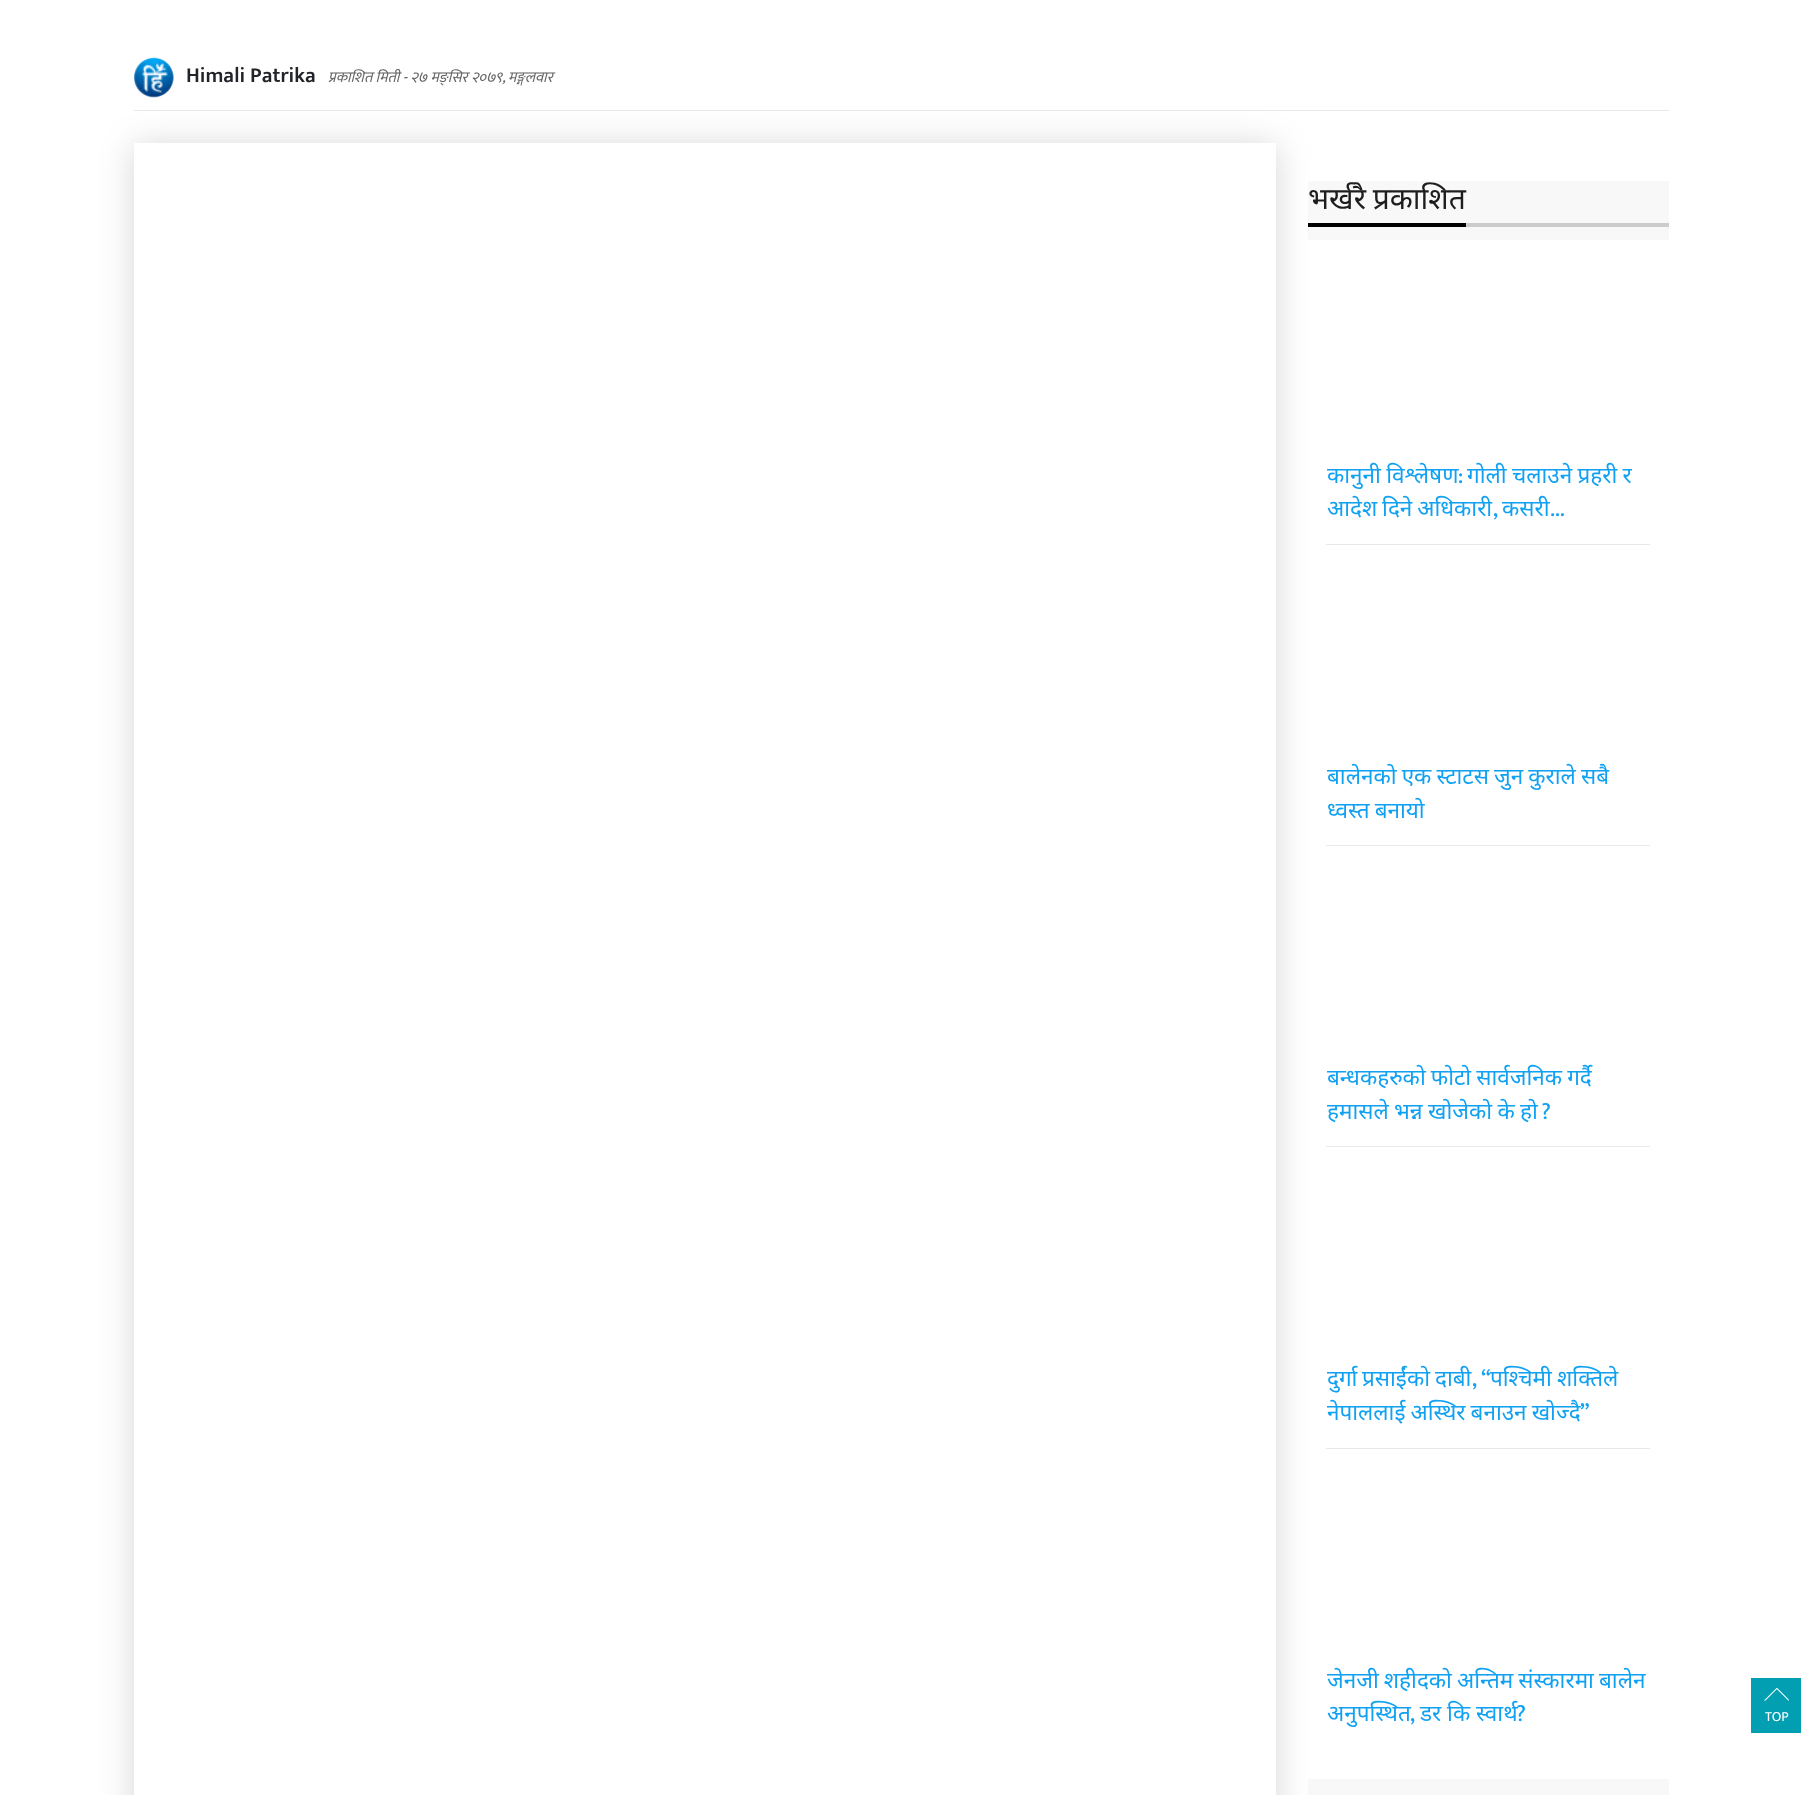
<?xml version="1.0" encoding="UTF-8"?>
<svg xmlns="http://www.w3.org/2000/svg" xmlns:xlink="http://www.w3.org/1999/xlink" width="1801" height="1795">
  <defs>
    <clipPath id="clip1"><path d="M 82 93 h 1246 v 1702 h -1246 z m 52 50 h 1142 v 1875 h -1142 z" clip-rule="evenodd" /></clipPath>
  </defs>
  <rect width="100%" height="100%" fill="#ffffff" />
  <rect x="134" y="110" width="1535" height="1" fill="#e8e8e8" />
  <g clip-path="url(#clip1)">
    <rect x="134" y="145" width="1142" height="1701" fill="#000000" fill-opacity="0.16" filter="blur(17px)" />
  </g>
  <image x="133" y="57" width="41" height="41" xlink:href="image1.png" />
  <rect x="1308" y="181" width="361" height="59" fill="#f8f8f8" />
  <rect x="1466" y="223" width="203" height="4" fill="#cccccc" />
  <rect x="1308" y="223" width="158" height="4" fill="#000000" />
  <rect x="1326" y="544" width="324" height="1" fill="#e8e8e8" />
  <rect x="1326" y="845" width="324" height="1" fill="#e8e8e8" />
  <rect x="1326" y="1146" width="324" height="1" fill="#e8e8e8" />
  <rect x="1326" y="1448" width="324" height="1" fill="#e8e8e8" />
  <rect x="1308" y="1779" width="361" height="16" fill="#f8f8f8" />
  <rect x="1751" y="1678" width="50" height="55" fill="#029fb2" />
  <image x="1764" y="1687" width="25" height="14" xlink:href="image2.png" />
  <text x="186" y="82" style="font-family: Mukta; font-size: 21.25px; font-weight: 600; fill: #212529">Himali Patrika</text>
  <text x="328" y="82" style="font-family: Mukta; font-size: 15px; font-style: italic; fill: #656565">प्रकाशित मिती - २७ मङ्सिर २०७९, मङ्गलवार</text>
  <text x="1308" y="209" word-spacing="-1" style="font-family: Noto Sans; font-size: 30px; fill: #1d1d1d">भर्खरै प्रकाशित</text>
  <text x="1327" y="483" word-spacing="-0.5" style="font-family: Noto Sans; font-size: 22.5px; fill: #11a1f2">कानुनी विश्लेषण</text>
  <text x="1458" y="483" style="font-family: Mukta; font-size: 22.5px; font-weight: 500; fill: #11a1f2">:</text>
  <text x="1467" y="483" word-spacing="-0.5" style="font-family: Noto Sans; font-size: 22.5px; fill: #11a1f2">गोली चलाउने प्रहरी र</text>
  <text x="1327" y="516" word-spacing="-1" style="font-family: Noto Sans; font-size: 22.5px; fill: #11a1f2">आदेश दिने अधिकारी</text>
  <text x="1493" y="516" style="font-family: Mukta; font-size: 22.5px; font-weight: 500; fill: #11a1f2">,</text>
  <text x="1502" y="516" style="font-family: Noto Sans; font-size: 22.5px; fill: #11a1f2">कसरी</text>
  <text x="1550" y="516" style="font-family: Mukta; font-size: 22.5px; font-weight: 500; fill: #11a1f2">…</text>
  <text x="1327" y="784" word-spacing="-0.75" style="font-family: Noto Sans; font-size: 22.5px; fill: #11a1f2">बालेनको एक स्टाटस जुन कुराले सबै</text>
  <text x="1327" y="818" word-spacing="-0.75" style="font-family: Noto Sans; font-size: 22.5px; fill: #11a1f2">ध्वस्त बनायो</text>
  <text x="1327" y="1085" word-spacing="-0.75" style="font-family: Noto Sans; font-size: 22.5px; fill: #11a1f2">बन्धकहरुको फोटो सार्वजनिक गर्दै</text>
  <text x="1327" y="1119" word-spacing="-0.5" style="font-family: Noto Sans; font-size: 22.5px; fill: #11a1f2">हमासले भन्न खोजेको के हो</text>
  <text x="1541" y="1119" style="font-family: Mukta; font-size: 22.5px; font-weight: 500; fill: #11a1f2">?</text>
  <text x="1327" y="1386" style="font-family: Noto Sans; font-size: 22.5px; fill: #11a1f2">दुर्गा</text>
  <text x="1362" y="1386" style="font-family: Noto Sans; font-size: 22.5px; fill: #11a1f2">प्रसाईंको</text>
  <text x="1435" y="1386" style="font-family: Noto Sans; font-size: 22.5px; fill: #11a1f2">दाबी</text>
  <text x="1472" y="1386" style="font-family: Mukta; font-size: 22.5px; font-weight: 500; fill: #11a1f2">, “</text>
  <text x="1490" y="1386" style="font-family: Noto Sans; font-size: 22.5px; fill: #11a1f2">पश्चिमी</text>
  <text x="1557" y="1386" style="font-family: Noto Sans; font-size: 22.5px; fill: #11a1f2">शक्तिले</text>
  <text x="1327" y="1420" word-spacing="-0.75" style="font-family: Noto Sans; font-size: 22.5px; fill: #11a1f2">नेपाललाई अस्थिर बनाउन खोज्दै</text>
  <text x="1580" y="1420" style="font-family: Mukta; font-size: 22.5px; font-weight: 500; fill: #11a1f2">”</text>
  <text x="1327" y="1688" word-spacing="-0.75" style="font-family: Noto Sans; font-size: 22.5px; fill: #11a1f2">जेनजी शहीदको अन्तिम संस्कारमा बालेन</text>
  <text x="1327" y="1721" style="font-family: Noto Sans; font-size: 22.5px; fill: #11a1f2">अनुपस्थित</text>
  <text x="1410" y="1721" style="font-family: Mukta; font-size: 22.5px; font-weight: 500; fill: #11a1f2">,</text>
  <text x="1420" y="1721" style="font-family: Noto Sans; font-size: 22.5px; fill: #11a1f2">डर कि स्वार्थ</text>
  <text x="1516" y="1721" style="font-family: Mukta; font-size: 22.5px; font-weight: 500; fill: #11a1f2">?</text>
  <text x="1765" y="1721" style="font-family: Mukta; font-size: 14px; fill: #ffffff">TOP</text>
</svg>
